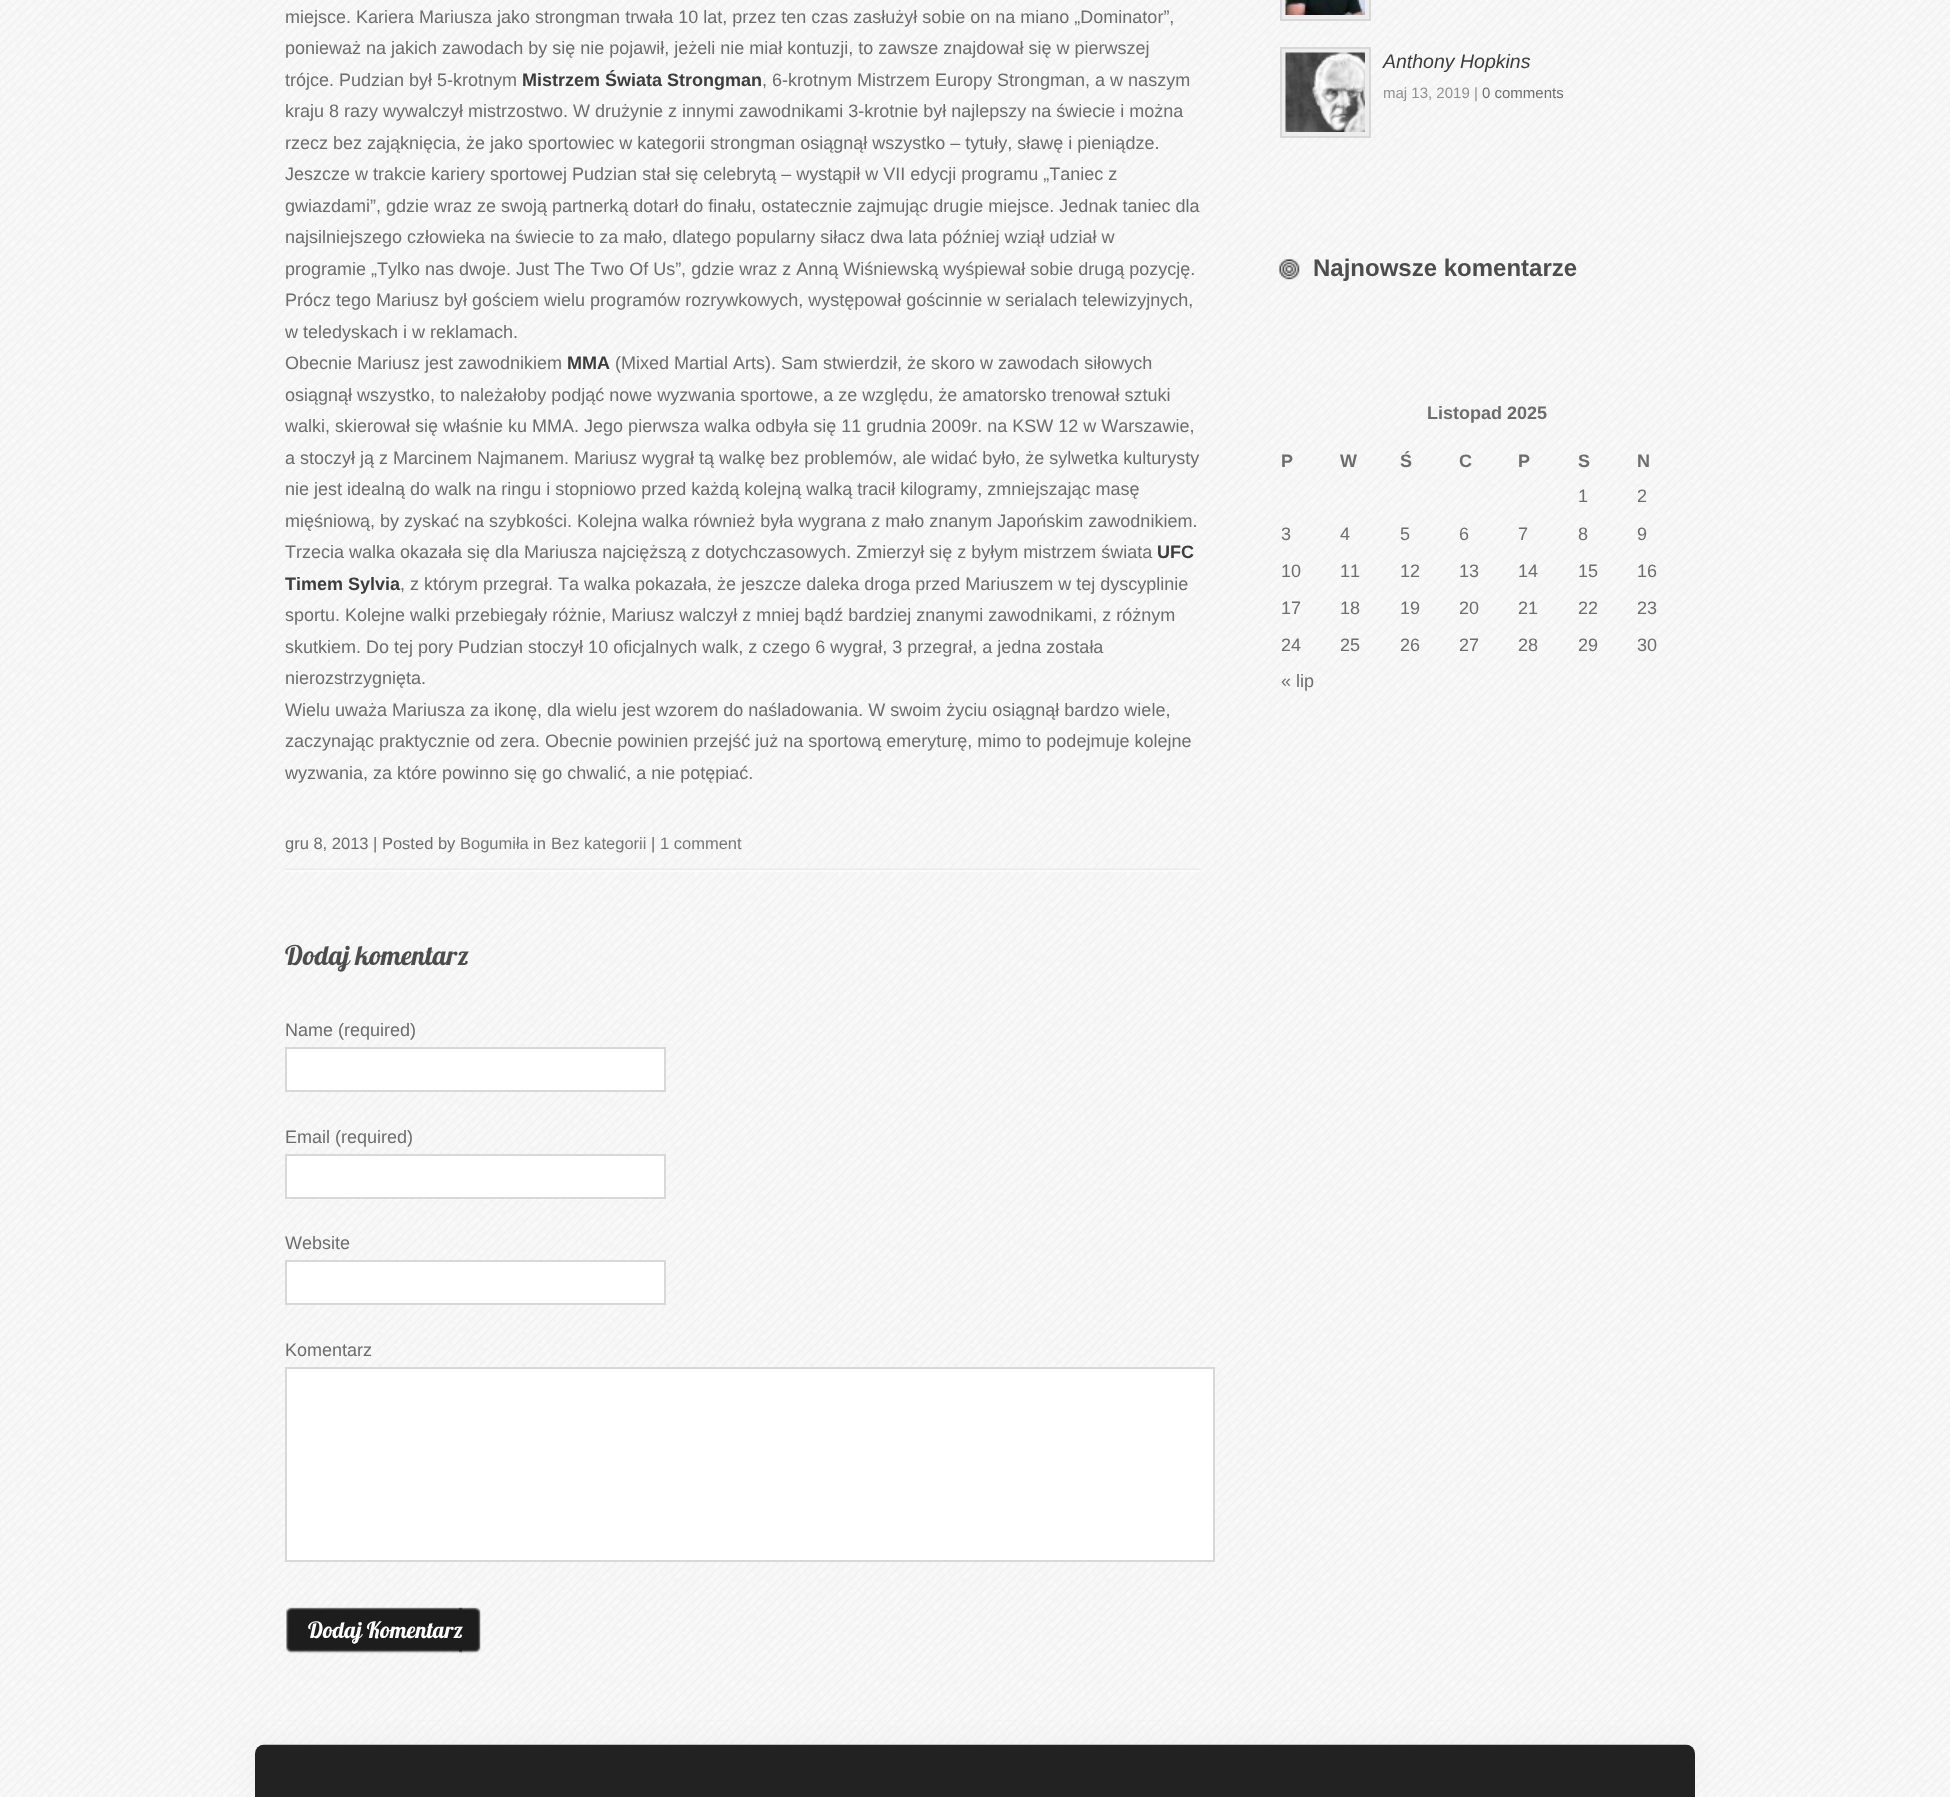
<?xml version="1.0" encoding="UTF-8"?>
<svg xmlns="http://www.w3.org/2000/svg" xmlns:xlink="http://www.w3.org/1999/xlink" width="1950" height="1797">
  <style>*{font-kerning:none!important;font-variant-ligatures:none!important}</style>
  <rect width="100%" height="100%" fill="#ffffff" />
  <image x="0" y="0" width="1950" height="1797" xlink:href="image1.png" />
  <image x="285" y="868" width="915" height="4" xlink:href="image2.png" />
  <rect x="286" y="1048" width="379" height="43" fill="#ffffff" stroke="#d8d8d8" stroke-width="2" />
  <rect x="286" y="1155" width="379" height="43" fill="#ffffff" stroke="#d8d8d8" stroke-width="2" />
  <rect x="286" y="1261" width="379" height="43" fill="#ffffff" stroke="#d8d8d8" stroke-width="2" />
  <rect x="286" y="1368" width="928" height="193" fill="#ffffff" stroke="#d8d8d8" stroke-width="2" />
  <image x="458" y="1607" width="23" height="47" xlink:href="image3.png" />
  <image x="286" y="1607" width="176" height="47" xlink:href="image4.png" />
  <rect x="1281" y="-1" width="89" height="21" fill="#ededed" stroke="#d8d8d8" stroke-width="2" />
  <image x="1285" y="0" width="80" height="15" xlink:href="image5.png" />
  <rect x="1281" y="48" width="89" height="89" fill="#ededed" stroke="#d8d8d8" stroke-width="2" />
  <image x="1285" y="52" width="80" height="80" xlink:href="image6.png" />
  <image x="1279" y="259" width="21" height="21" xlink:href="image7.png" />
  <rect x="255" y="1745" width="1440" height="52" rx="9" fill="#eeeeee" filter="blur(11px)" />
  <image x="255" y="1744" width="1440" height="53" xlink:href="image8.png" />
  <text x="285" y="23" style="font-family: Liberation Sans; font-size: 18px; fill: #6e6d6d">miejsce. Kariera Mariusza jako strongman trwała 10 lat, przez ten czas zasłużył sobie on na miano „Dominator”,</text>
  <text x="285" y="54" style="font-family: Liberation Sans; font-size: 18px; fill: #6e6d6d">ponieważ na jakich zawodach by się nie pojawił, jeżeli nie miał kontuzji, to zawsze znajdował się w pierwszej</text>
  <text x="285" y="86" style="font-family: Liberation Sans; font-size: 18px; fill: #6e6d6d">trójce. Pudzian był 5-krotnym</text>
  <text x="522" y="86" style="font-family: Liberation Sans; font-size: 18px; font-weight: bold; fill: #3d3d3d">Mistrzem Świata Strongman</text>
  <text x="762" y="86" style="font-family: Liberation Sans; font-size: 18px; fill: #6e6d6d">, 6-krotnym Mistrzem Europy Strongman, a w naszym</text>
  <text x="285" y="117" style="font-family: Liberation Sans; font-size: 18px; fill: #6e6d6d">kraju 8 razy wywalczył mistrzostwo. W drużynie z innymi zawodnikami 3-krotnie był najlepszy na świecie i można</text>
  <text x="285" y="149" style="font-family: Liberation Sans; font-size: 18px; fill: #6e6d6d">rzecz bez zająknięcia, że jako sportowiec w kategorii strongman osiągnął wszystko – tytuły, sławę i pieniądze.</text>
  <text x="285" y="180" style="font-family: Liberation Sans; font-size: 18px; fill: #6e6d6d">Jeszcze w trakcie kariery sportowej Pudzian stał się celebrytą – wystąpił w VII edycji programu „Taniec z</text>
  <text x="285" y="212" style="font-family: Liberation Sans; font-size: 18px; fill: #6e6d6d">gwiazdami”, gdzie wraz ze swoją partnerką dotarł do finału, ostatecznie zajmując drugie miejsce. Jednak taniec dla</text>
  <text x="285" y="243" style="font-family: Liberation Sans; font-size: 18px; fill: #6e6d6d">najsilniejszego człowieka na świecie to za mało, dlatego popularny siłacz dwa lata później wziął udział w</text>
  <text x="285" y="275" style="font-family: Liberation Sans; font-size: 18px; fill: #6e6d6d">programie „Tylko nas dwoje. Just The Two Of Us”, gdzie wraz z Anną Wiśniewską wyśpiewał sobie drugą pozycję.</text>
  <text x="285" y="306" style="font-family: Liberation Sans; font-size: 18px; fill: #6e6d6d">Prócz tego Mariusz był gościem wielu programów rozrywkowych, występował gościnnie w serialach telewizyjnych,</text>
  <text x="285" y="338" style="font-family: Liberation Sans; font-size: 18px; fill: #6e6d6d">w teledyskach i w reklamach.</text>
  <text x="285" y="369" style="font-family: Liberation Sans; font-size: 18px; fill: #6e6d6d">Obecnie Mariusz jest zawodnikiem</text>
  <text x="567" y="369" style="font-family: Liberation Sans; font-size: 18px; font-weight: bold; fill: #3d3d3d">MMA</text>
  <text x="615" y="369" style="font-family: Liberation Sans; font-size: 18px; fill: #6e6d6d">(Mixed Martial Arts). Sam stwierdził, że skoro w zawodach siłowych</text>
  <text x="285" y="401" style="font-family: Liberation Sans; font-size: 18px; fill: #6e6d6d">osiągnął wszystko, to należałoby podjąć nowe wyzwania sportowe, a ze względu, że amatorsko trenował sztuki</text>
  <text x="285" y="432" style="font-family: Liberation Sans; font-size: 18px; fill: #6e6d6d">walki, skierował się właśnie ku MMA. Jego pierwsza walka odbyła się 11 grudnia 2009r. na KSW 12 w Warszawie,</text>
  <text x="285" y="464" style="font-family: Liberation Sans; font-size: 18px; fill: #6e6d6d">a stoczył ją z Marcinem Najmanem. Mariusz wygrał tą walkę bez problemów, ale widać było, że sylwetka kulturysty</text>
  <text x="285" y="495" style="font-family: Liberation Sans; font-size: 18px; fill: #6e6d6d">nie jest idealną do walk na ringu i stopniowo przed każdą kolejną walką tracił kilogramy, zmniejszając masę</text>
  <text x="285" y="527" style="font-family: Liberation Sans; font-size: 18px; fill: #6e6d6d">mięśniową, by zyskać na szybkości. Kolejna walka również była wygrana z mało znanym Japońskim zawodnikiem.</text>
  <text x="285" y="558" style="font-family: Liberation Sans; font-size: 18px; fill: #6e6d6d">Trzecia walka okazała się dla Mariusza najcięższą z dotychczasowych. Zmierzył się z byłym mistrzem świata</text>
  <text x="1157" y="558" style="font-family: Liberation Sans; font-size: 18px; font-weight: bold; fill: #3d3d3d">UFC</text>
  <text x="285" y="590" style="font-family: Liberation Sans; font-size: 18px; font-weight: bold; fill: #3d3d3d">Timem Sylvia</text>
  <text x="400" y="590" style="font-family: Liberation Sans; font-size: 18px; fill: #6e6d6d">, z którym przegrał. Ta walka pokazała, że jeszcze daleka droga przed Mariuszem w tej dyscyplinie</text>
  <text x="285" y="621" style="font-family: Liberation Sans; font-size: 18px; fill: #6e6d6d">sportu. Kolejne walki przebiegały różnie, Mariusz walczył z mniej bądź bardziej znanymi zawodnikami, z różnym</text>
  <text x="285" y="653" style="font-family: Liberation Sans; font-size: 18px; fill: #6e6d6d">skutkiem. Do tej pory Pudzian stoczył 10 oficjalnych walk, z czego 6 wygrał, 3 przegrał, a jedna została</text>
  <text x="285" y="684" style="font-family: Liberation Sans; font-size: 18px; fill: #6e6d6d">nierozstrzygnięta.</text>
  <text x="285" y="716" style="font-family: Liberation Sans; font-size: 18px; fill: #6e6d6d">Wielu uważa Mariusza za ikonę, dla wielu jest wzorem do naśladowania. W swoim życiu osiągnął bardzo wiele,</text>
  <text x="285" y="747" style="font-family: Liberation Sans; font-size: 18px; fill: #6e6d6d">zaczynając praktycznie od zera. Obecnie powinien przejść już na sportową emeryturę, mimo to podejmuje kolejne</text>
  <text x="285" y="779" style="font-family: Liberation Sans; font-size: 18px; fill: #6e6d6d">wyzwania, za które powinno się go chwalić, a nie potępiać.</text>
  <text x="285" y="849" style="font-family: Liberation Sans; font-size: 16.5px; fill: #6e6d6d">gru 8, 2013 | Posted by</text>
  <text x="460" y="849" style="font-family: Liberation Sans; font-size: 16.5px; fill: #767676">Bogumiła</text>
  <text x="533" y="849" style="font-family: Liberation Sans; font-size: 16.5px; fill: #6e6d6d">in</text>
  <text x="551" y="849" style="font-family: Liberation Sans; font-size: 16.5px; fill: #767676">Bez kategorii</text>
  <text x="651" y="849" style="font-family: Liberation Sans; font-size: 16.5px; fill: #6e6d6d">|</text>
  <text x="660" y="849" style="font-family: Liberation Sans; font-size: 16.5px; fill: #767676">1 comment</text>
  <text x="285" y="965" style="font-family: Lobster; font-size: 27px; fill: #4d4d4d">Dodaj komentarz</text>
  <text x="285" y="1036" style="font-family: Liberation Sans; font-size: 18px; fill: #6e6d6d">Name (required)</text>
  <text x="285" y="1143" style="font-family: Liberation Sans; font-size: 18px; fill: #6e6d6d">Email (required)</text>
  <text x="285" y="1249" style="font-family: Liberation Sans; font-size: 18px; fill: #6e6d6d">Website</text>
  <text x="285" y="1356" style="font-family: Liberation Sans; font-size: 18px; fill: #6e6d6d">Komentarz</text>
  <text x="308" y="1638" style="font-family: Lobster; font-size: 22.5px; fill: #ffffff">Dodaj Komentarz</text>
  <text x="1383" y="68" style="font-family: Liberation Sans; font-size: 19.5px; font-style: italic; fill: #3d3d3d">Anthony Hopkins</text>
  <text x="1383" y="98" style="font-family: Liberation Sans; font-size: 15px; fill: #909090">maj 13, 2019 |</text>
  <text x="1482" y="98" style="font-family: Liberation Sans; font-size: 15px; fill: #6e6d6d">0 comments</text>
  <text x="1313" y="276" style="font-family: Liberation Sans; font-size: 24px; font-weight: bold; fill: #4d4d4d">Najnowsze komentarze</text>
  <text x="1427" y="419" style="font-family: Liberation Sans; font-size: 18px; font-weight: bold; fill: #6e6d6d">Listopad 2025</text>
  <text x="1281" y="467" style="font-family: Liberation Sans; font-size: 18px; font-weight: bold; fill: #6e6d6d">P</text>
  <text x="1340" y="467" style="font-family: Liberation Sans; font-size: 18px; font-weight: bold; fill: #6e6d6d">W</text>
  <text x="1400" y="467" style="font-family: Liberation Sans; font-size: 18px; font-weight: bold; fill: #6e6d6d">Ś</text>
  <text x="1459" y="467" style="font-family: Liberation Sans; font-size: 18px; font-weight: bold; fill: #6e6d6d">C</text>
  <text x="1518" y="467" style="font-family: Liberation Sans; font-size: 18px; font-weight: bold; fill: #6e6d6d">P</text>
  <text x="1578" y="467" style="font-family: Liberation Sans; font-size: 18px; font-weight: bold; fill: #6e6d6d">S</text>
  <text x="1637" y="467" style="font-family: Liberation Sans; font-size: 18px; font-weight: bold; fill: #6e6d6d">N</text>
  <text x="1578" y="502" style="font-family: Liberation Sans; font-size: 18px; fill: #6e6d6d">1</text>
  <text x="1637" y="502" style="font-family: Liberation Sans; font-size: 18px; fill: #6e6d6d">2</text>
  <text x="1281" y="540" style="font-family: Liberation Sans; font-size: 18px; fill: #6e6d6d">3</text>
  <text x="1340" y="540" style="font-family: Liberation Sans; font-size: 18px; fill: #6e6d6d">4</text>
  <text x="1400" y="540" style="font-family: Liberation Sans; font-size: 18px; fill: #6e6d6d">5</text>
  <text x="1459" y="540" style="font-family: Liberation Sans; font-size: 18px; fill: #6e6d6d">6</text>
  <text x="1518" y="540" style="font-family: Liberation Sans; font-size: 18px; fill: #6e6d6d">7</text>
  <text x="1578" y="540" style="font-family: Liberation Sans; font-size: 18px; fill: #6e6d6d">8</text>
  <text x="1637" y="540" style="font-family: Liberation Sans; font-size: 18px; fill: #6e6d6d">9</text>
  <text x="1281" y="577" style="font-family: Liberation Sans; font-size: 18px; fill: #6e6d6d">10</text>
  <text x="1340" y="577" style="font-family: Liberation Sans; font-size: 18px; fill: #6e6d6d">11</text>
  <text x="1400" y="577" style="font-family: Liberation Sans; font-size: 18px; fill: #6e6d6d">12</text>
  <text x="1459" y="577" style="font-family: Liberation Sans; font-size: 18px; fill: #6e6d6d">13</text>
  <text x="1518" y="577" style="font-family: Liberation Sans; font-size: 18px; fill: #6e6d6d">14</text>
  <text x="1578" y="577" style="font-family: Liberation Sans; font-size: 18px; fill: #6e6d6d">15</text>
  <text x="1637" y="577" style="font-family: Liberation Sans; font-size: 18px; fill: #6e6d6d">16</text>
  <text x="1281" y="614" style="font-family: Liberation Sans; font-size: 18px; fill: #6e6d6d">17</text>
  <text x="1340" y="614" style="font-family: Liberation Sans; font-size: 18px; fill: #6e6d6d">18</text>
  <text x="1400" y="614" style="font-family: Liberation Sans; font-size: 18px; fill: #6e6d6d">19</text>
  <text x="1459" y="614" style="font-family: Liberation Sans; font-size: 18px; fill: #6e6d6d">20</text>
  <text x="1518" y="614" style="font-family: Liberation Sans; font-size: 18px; fill: #6e6d6d">21</text>
  <text x="1578" y="614" style="font-family: Liberation Sans; font-size: 18px; fill: #6e6d6d">22</text>
  <text x="1637" y="614" style="font-family: Liberation Sans; font-size: 18px; fill: #6e6d6d">23</text>
  <text x="1281" y="651" style="font-family: Liberation Sans; font-size: 18px; fill: #6e6d6d">24</text>
  <text x="1340" y="651" style="font-family: Liberation Sans; font-size: 18px; fill: #6e6d6d">25</text>
  <text x="1400" y="651" style="font-family: Liberation Sans; font-size: 18px; fill: #6e6d6d">26</text>
  <text x="1459" y="651" style="font-family: Liberation Sans; font-size: 18px; fill: #6e6d6d">27</text>
  <text x="1518" y="651" style="font-family: Liberation Sans; font-size: 18px; fill: #6e6d6d">28</text>
  <text x="1578" y="651" style="font-family: Liberation Sans; font-size: 18px; fill: #6e6d6d">29</text>
  <text x="1637" y="651" style="font-family: Liberation Sans; font-size: 18px; fill: #6e6d6d">30</text>
  <text x="1281" y="687" style="font-family: Liberation Sans; font-size: 18px; fill: #6e6d6d">« lip</text>
</svg>
